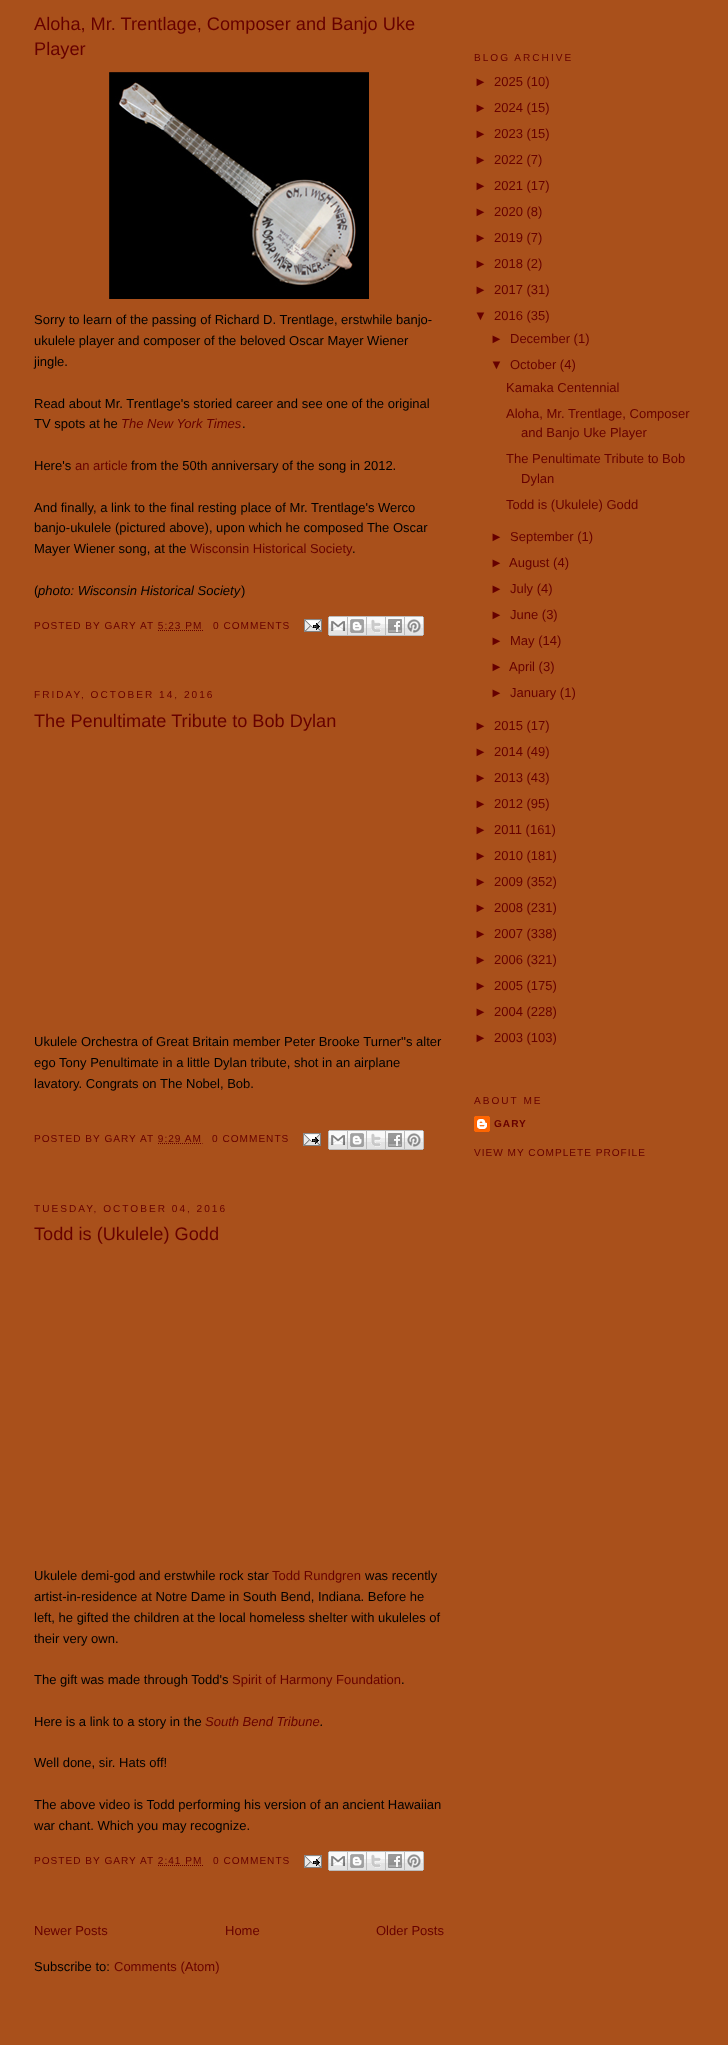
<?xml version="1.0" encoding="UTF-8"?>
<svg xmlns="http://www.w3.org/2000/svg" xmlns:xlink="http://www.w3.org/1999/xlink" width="728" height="2045">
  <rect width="100%" height="100%" fill="#a9501b" />
  <image x="109" y="72" width="260" height="227" xlink:href="image1.png" />
  <path d="M 158 630.5 h 45" fill="none" stroke="#660000" stroke-dasharray="1 1" />
  <image x="304" y="619" width="18" height="13" xlink:href="image2.png" />
  <image x="328" y="616" width="20" height="20" xlink:href="image3.png" />
  <image x="348" y="616" width="19" height="20" xlink:href="image4.png" />
  <image x="367" y="616" width="19" height="20" xlink:href="image5.png" />
  <image x="386" y="616" width="19" height="20" xlink:href="image6.png" />
  <image x="405" y="616" width="19" height="20" xlink:href="image7.png" />
  <path d="M 158 1143.5 h 44.5" fill="none" stroke="#660000" stroke-dasharray="1 1" />
  <image x="303" y="1133" width="18" height="13" xlink:href="image2.png" />
  <image x="328" y="1130" width="20" height="20" xlink:href="image3.png" />
  <image x="348" y="1130" width="19" height="20" xlink:href="image4.png" />
  <image x="367" y="1130" width="19" height="20" xlink:href="image5.png" />
  <image x="386" y="1130" width="19" height="20" xlink:href="image6.png" />
  <image x="405" y="1130" width="19" height="20" xlink:href="image7.png" />
  <path d="M 158 1865.5 h 45" fill="none" stroke="#660000" stroke-dasharray="1 1" />
  <image x="304" y="1855" width="18" height="13" xlink:href="image2.png" />
  <image x="328" y="1851" width="20" height="20" xlink:href="image3.png" />
  <image x="348" y="1851" width="19" height="20" xlink:href="image4.png" />
  <image x="367" y="1851" width="19" height="20" xlink:href="image5.png" />
  <image x="386" y="1851" width="19" height="20" xlink:href="image6.png" />
  <image x="405" y="1851" width="19" height="20" xlink:href="image7.png" />
  <image x="474" y="1116" width="16" height="16" xlink:href="image8.png" />
  <text x="34" y="30" style="font-family: Liberation Sans; font-size: 18.2px; fill: #660000">Aloha, Mr. Trentlage, Composer and Banjo Uke</text>
  <text x="34" y="55" style="font-family: Liberation Sans; font-size: 18.2px; fill: #660000">Player</text>
  <text x="34" y="324" style="font-family: Liberation Sans; font-size: 13px; fill: #000000">Sorry to learn of the passing of Richard D. Trentlage, erstwhile banjo-</text>
  <text x="34" y="345" style="font-family: Liberation Sans; font-size: 13px; fill: #000000">ukulele player and composer of the beloved Oscar Mayer Wiener</text>
  <text x="34" y="366" style="font-family: Liberation Sans; font-size: 13px; fill: #000000">jingle.</text>
  <text x="34" y="408" style="font-family: Liberation Sans; font-size: 13px; fill: #000000">Read about Mr. Trentlage's storied career and see one of the original</text>
  <text x="34" y="428" style="font-family: Liberation Sans; font-size: 13px; fill: #000000">TV spots at he</text>
  <text x="121" y="428" style="font-family: Liberation Sans; font-size: 13px; font-style: italic; fill: #660000">The New York Times</text>
  <text x="242" y="428" style="font-family: Liberation Sans; font-size: 13px; fill: #000000">.</text>
  <text x="34" y="470" style="font-family: Liberation Sans; font-size: 13px; fill: #000000">Here's</text>
  <text x="75" y="470" style="font-family: Liberation Sans; font-size: 13px; fill: #660000">an article</text>
  <text x="131" y="470" style="font-family: Liberation Sans; font-size: 13px; fill: #000000">from the 50th anniversary of the song in 2012.</text>
  <text x="34" y="512" style="font-family: Liberation Sans; font-size: 13px; fill: #000000">And finally, a link to the final resting place of Mr. Trentlage's Werco</text>
  <text x="34" y="532" style="font-family: Liberation Sans; font-size: 13px; fill: #000000">banjo-ukulele (pictured above), upon which he composed The Oscar</text>
  <text x="34" y="553" style="font-family: Liberation Sans; font-size: 13px; fill: #000000">Mayer Wiener song, at the</text>
  <text x="190" y="553" style="font-family: Liberation Sans; font-size: 13px; fill: #660000">Wisconsin Historical Society</text>
  <text x="352" y="553" style="font-family: Liberation Sans; font-size: 13px; fill: #000000">.</text>
  <text x="34" y="595" style="font-family: Liberation Sans; font-size: 13px; fill: #000000">(</text>
  <text x="38" y="595" style="font-family: Liberation Sans; font-size: 13px; font-style: italic; fill: #000000">photo: Wisconsin Historical Society</text>
  <text x="241" y="595" style="font-family: Liberation Sans; font-size: 13px; fill: #000000">)</text>
  <text x="34" y="629" style="font-family: Liberation Sans; font-size: 10.1px; letter-spacing: 1px; fill: #660000">POSTED BY GARY</text>
  <text x="140" y="629" style="font-family: Liberation Sans; font-size: 10.1px; letter-spacing: 1px; fill: #660000">AT 5:23 PM</text>
  <text x="213" y="629" style="font-family: Liberation Sans; font-size: 10.1px; letter-spacing: 1px; fill: #660000">0 COMMENTS</text>
  <text x="34" y="698" style="font-family: Liberation Sans; font-size: 10.1px; letter-spacing: 2px; fill: #660000">FRIDAY, OCTOBER 14, 2016</text>
  <text x="34" y="727" style="font-family: Liberation Sans; font-size: 18.2px; fill: #660000">The Penultimate Tribute to Bob Dylan</text>
  <text x="34" y="1046" style="font-family: Liberation Sans; font-size: 13px; fill: #000000">Ukulele Orchestra of Great Britain member Peter Brooke Turner''s alter</text>
  <text x="34" y="1067" style="font-family: Liberation Sans; font-size: 13px; fill: #000000">ego Tony Penultimate in a little Dylan tribute, shot in an airplane</text>
  <text x="34" y="1088" style="font-family: Liberation Sans; font-size: 13px; fill: #000000">lavatory. Congrats on The Nobel, Bob.</text>
  <text x="34" y="1142" style="font-family: Liberation Sans; font-size: 10.1px; letter-spacing: 1px; fill: #660000">POSTED BY GARY</text>
  <text x="140" y="1142" style="font-family: Liberation Sans; font-size: 10.1px; letter-spacing: 1px; fill: #660000">AT 9:29 AM</text>
  <text x="212" y="1142" style="font-family: Liberation Sans; font-size: 10.1px; letter-spacing: 1px; fill: #660000">0 COMMENTS</text>
  <text x="34" y="1212" style="font-family: Liberation Sans; font-size: 10.1px; letter-spacing: 2px; fill: #660000">TUESDAY, OCTOBER 04, 2016</text>
  <text x="34" y="1240" style="font-family: Liberation Sans; font-size: 18.2px; fill: #660000">Todd is (Ukulele) Godd</text>
  <text x="34" y="1580" style="font-family: Liberation Sans; font-size: 13px; fill: #000000">Ukulele demi-god and erstwhile rock star</text>
  <text x="272" y="1580" style="font-family: Liberation Sans; font-size: 13px; fill: #660000">Todd Rundgren</text>
  <text x="365" y="1580" style="font-family: Liberation Sans; font-size: 13px; fill: #000000">was recently</text>
  <text x="34" y="1601" style="font-family: Liberation Sans; font-size: 13px; fill: #000000">artist-in-residence at Notre Dame in South Bend, Indiana. Before he</text>
  <text x="34" y="1622" style="font-family: Liberation Sans; font-size: 13px; fill: #000000">left, he gifted the children at the local homeless shelter with ukuleles of</text>
  <text x="34" y="1643" style="font-family: Liberation Sans; font-size: 13px; fill: #000000">their very own.</text>
  <text x="34" y="1684" style="font-family: Liberation Sans; font-size: 13px; fill: #000000">The gift was made through Todd's</text>
  <text x="232" y="1684" style="font-family: Liberation Sans; font-size: 13px; fill: #660000">Spirit of Harmony Foundation</text>
  <text x="401" y="1684" style="font-family: Liberation Sans; font-size: 13px; fill: #000000">.</text>
  <text x="34" y="1726" style="font-family: Liberation Sans; font-size: 13px; fill: #000000">Here is a link to a story in the</text>
  <text x="205" y="1726" style="font-family: Liberation Sans; font-size: 13px; font-style: italic; fill: #660000">South Bend Tribune</text>
  <text x="320" y="1726" style="font-family: Liberation Sans; font-size: 13px; font-style: italic; fill: #000000">.</text>
  <text x="34" y="1767" style="font-family: Liberation Sans; font-size: 13px; fill: #000000">Well done, sir. Hats off!</text>
  <text x="34" y="1809" style="font-family: Liberation Sans; font-size: 13px; fill: #000000">The above video is Todd performing his version of an ancient Hawaiian</text>
  <text x="34" y="1830" style="font-family: Liberation Sans; font-size: 13px; fill: #000000">war chant. Which you may recognize.</text>
  <text x="34" y="1864" style="font-family: Liberation Sans; font-size: 10.1px; letter-spacing: 1px; fill: #660000">POSTED BY GARY</text>
  <text x="140" y="1864" style="font-family: Liberation Sans; font-size: 10.1px; letter-spacing: 1px; fill: #660000">AT 2:41 PM</text>
  <text x="213" y="1864" style="font-family: Liberation Sans; font-size: 10.1px; letter-spacing: 1px; fill: #660000">0 COMMENTS</text>
  <text x="34" y="1935" style="font-family: Liberation Sans; font-size: 13px; fill: #660000">Newer Posts</text>
  <text x="225" y="1935" style="font-family: Liberation Sans; font-size: 13px; fill: #660000">Home</text>
  <text x="376" y="1935" style="font-family: Liberation Sans; font-size: 13px; fill: #660000">Older Posts</text>
  <text x="34" y="1971" style="font-family: Liberation Sans; font-size: 13px; fill: #000000">Subscribe to:</text>
  <text x="114" y="1971" style="font-family: Liberation Sans; font-size: 13px; fill: #660000">Comments (Atom)</text>
  <text x="474" y="61" style="font-family: Liberation Sans; font-size: 10.1px; letter-spacing: 2px; fill: #660000">BLOG ARCHIVE</text>
  <text x="474" y="86" style="font-family: Liberation Sans; font-size: 13px; fill: #660000">►</text>
  <text x="494" y="86" style="font-family: Liberation Sans; font-size: 13px; fill: #660000">2025 (10)</text>
  <text x="474" y="112" style="font-family: Liberation Sans; font-size: 13px; fill: #660000">►</text>
  <text x="494" y="112" style="font-family: Liberation Sans; font-size: 13px; fill: #660000">2024 (15)</text>
  <text x="474" y="138" style="font-family: Liberation Sans; font-size: 13px; fill: #660000">►</text>
  <text x="494" y="138" style="font-family: Liberation Sans; font-size: 13px; fill: #660000">2023 (15)</text>
  <text x="474" y="164" style="font-family: Liberation Sans; font-size: 13px; fill: #660000">►</text>
  <text x="494" y="164" style="font-family: Liberation Sans; font-size: 13px; fill: #660000">2022 (7)</text>
  <text x="474" y="190" style="font-family: Liberation Sans; font-size: 13px; fill: #660000">►</text>
  <text x="494" y="190" style="font-family: Liberation Sans; font-size: 13px; fill: #660000">2021 (17)</text>
  <text x="474" y="216" style="font-family: Liberation Sans; font-size: 13px; fill: #660000">►</text>
  <text x="494" y="216" style="font-family: Liberation Sans; font-size: 13px; fill: #660000">2020 (8)</text>
  <text x="474" y="242" style="font-family: Liberation Sans; font-size: 13px; fill: #660000">►</text>
  <text x="494" y="242" style="font-family: Liberation Sans; font-size: 13px; fill: #660000">2019 (7)</text>
  <text x="474" y="268" style="font-family: Liberation Sans; font-size: 13px; fill: #660000">►</text>
  <text x="494" y="268" style="font-family: Liberation Sans; font-size: 13px; fill: #660000">2018 (2)</text>
  <text x="474" y="294" style="font-family: Liberation Sans; font-size: 13px; fill: #660000">►</text>
  <text x="494" y="294" style="font-family: Liberation Sans; font-size: 13px; fill: #660000">2017 (31)</text>
  <text x="474" y="320" style="font-family: Liberation Sans; font-size: 13px; fill: #660000">▼</text>
  <text x="494" y="320" style="font-family: Liberation Sans; font-size: 13px; fill: #660000">2016 (35)</text>
  <text x="490" y="343" style="font-family: Liberation Sans; font-size: 13px; fill: #660000">►</text>
  <text x="510" y="343" style="font-family: Liberation Sans; font-size: 13px; fill: #660000">December (1)</text>
  <text x="490" y="369" style="font-family: Liberation Sans; font-size: 13px; fill: #660000">▼</text>
  <text x="510" y="369" style="font-family: Liberation Sans; font-size: 13px; fill: #660000">October (4)</text>
  <text x="506" y="392" style="font-family: Liberation Sans; font-size: 13px; fill: #660000">Kamaka Centennial</text>
  <text x="506" y="418" style="font-family: Liberation Sans; font-size: 13px; fill: #660000">Aloha, Mr. Trentlage, Composer</text>
  <text x="521" y="437" style="font-family: Liberation Sans; font-size: 13px; fill: #660000">and Banjo Uke Player</text>
  <text x="506" y="463" style="font-family: Liberation Sans; font-size: 13px; fill: #660000">The Penultimate Tribute to Bob</text>
  <text x="521" y="483" style="font-family: Liberation Sans; font-size: 13px; fill: #660000">Dylan</text>
  <text x="506" y="509" style="font-family: Liberation Sans; font-size: 13px; fill: #660000">Todd is (Ukulele) Godd</text>
  <text x="490" y="541" style="font-family: Liberation Sans; font-size: 13px; fill: #660000">►</text>
  <text x="510" y="541" style="font-family: Liberation Sans; font-size: 13px; fill: #660000">September (1)</text>
  <text x="490" y="567" style="font-family: Liberation Sans; font-size: 13px; fill: #660000">►</text>
  <text x="509" y="567" style="font-family: Liberation Sans; font-size: 13px; fill: #660000">August (4)</text>
  <text x="490" y="593" style="font-family: Liberation Sans; font-size: 13px; fill: #660000">►</text>
  <text x="510" y="593" style="font-family: Liberation Sans; font-size: 13px; fill: #660000">July (4)</text>
  <text x="490" y="619" style="font-family: Liberation Sans; font-size: 13px; fill: #660000">►</text>
  <text x="510" y="619" style="font-family: Liberation Sans; font-size: 13px; fill: #660000">June (3)</text>
  <text x="490" y="645" style="font-family: Liberation Sans; font-size: 13px; fill: #660000">►</text>
  <text x="510" y="645" style="font-family: Liberation Sans; font-size: 13px; fill: #660000">May (14)</text>
  <text x="490" y="671" style="font-family: Liberation Sans; font-size: 13px; fill: #660000">►</text>
  <text x="509" y="671" style="font-family: Liberation Sans; font-size: 13px; fill: #660000">April (3)</text>
  <text x="490" y="697" style="font-family: Liberation Sans; font-size: 13px; fill: #660000">►</text>
  <text x="510" y="697" style="font-family: Liberation Sans; font-size: 13px; fill: #660000">January (1)</text>
  <text x="474" y="730" style="font-family: Liberation Sans; font-size: 13px; fill: #660000">►</text>
  <text x="494" y="730" style="font-family: Liberation Sans; font-size: 13px; fill: #660000">2015 (17)</text>
  <text x="474" y="756" style="font-family: Liberation Sans; font-size: 13px; fill: #660000">►</text>
  <text x="494" y="756" style="font-family: Liberation Sans; font-size: 13px; fill: #660000">2014 (49)</text>
  <text x="474" y="782" style="font-family: Liberation Sans; font-size: 13px; fill: #660000">►</text>
  <text x="494" y="782" style="font-family: Liberation Sans; font-size: 13px; fill: #660000">2013 (43)</text>
  <text x="474" y="808" style="font-family: Liberation Sans; font-size: 13px; fill: #660000">►</text>
  <text x="494" y="808" style="font-family: Liberation Sans; font-size: 13px; fill: #660000">2012 (95)</text>
  <text x="474" y="834" style="font-family: Liberation Sans; font-size: 13px; fill: #660000">►</text>
  <text x="494" y="834" style="font-family: Liberation Sans; font-size: 13px; fill: #660000">2011 (161)</text>
  <text x="474" y="860" style="font-family: Liberation Sans; font-size: 13px; fill: #660000">►</text>
  <text x="494" y="860" style="font-family: Liberation Sans; font-size: 13px; fill: #660000">2010 (181)</text>
  <text x="474" y="886" style="font-family: Liberation Sans; font-size: 13px; fill: #660000">►</text>
  <text x="494" y="886" style="font-family: Liberation Sans; font-size: 13px; fill: #660000">2009 (352)</text>
  <text x="474" y="912" style="font-family: Liberation Sans; font-size: 13px; fill: #660000">►</text>
  <text x="494" y="912" style="font-family: Liberation Sans; font-size: 13px; fill: #660000">2008 (231)</text>
  <text x="474" y="938" style="font-family: Liberation Sans; font-size: 13px; fill: #660000">►</text>
  <text x="494" y="938" style="font-family: Liberation Sans; font-size: 13px; fill: #660000">2007 (338)</text>
  <text x="474" y="964" style="font-family: Liberation Sans; font-size: 13px; fill: #660000">►</text>
  <text x="494" y="964" style="font-family: Liberation Sans; font-size: 13px; fill: #660000">2006 (321)</text>
  <text x="474" y="990" style="font-family: Liberation Sans; font-size: 13px; fill: #660000">►</text>
  <text x="494" y="990" style="font-family: Liberation Sans; font-size: 13px; fill: #660000">2005 (175)</text>
  <text x="474" y="1016" style="font-family: Liberation Sans; font-size: 13px; fill: #660000">►</text>
  <text x="494" y="1016" style="font-family: Liberation Sans; font-size: 13px; fill: #660000">2004 (228)</text>
  <text x="474" y="1042" style="font-family: Liberation Sans; font-size: 13px; fill: #660000">►</text>
  <text x="494" y="1042" style="font-family: Liberation Sans; font-size: 13px; fill: #660000">2003 (103)</text>
  <text x="474" y="1104" style="font-family: Liberation Sans; font-size: 10.1px; letter-spacing: 2px; fill: #660000">ABOUT ME</text>
  <text x="494" y="1127" style="font-family: Liberation Sans; font-size: 10.1px; font-weight: bold; letter-spacing: 1px; fill: #660000">GARY</text>
  <text x="474" y="1156" style="font-family: Liberation Sans; font-size: 10.1px; letter-spacing: 1px; fill: #660000">VIEW MY COMPLETE PROFILE</text>
</svg>
